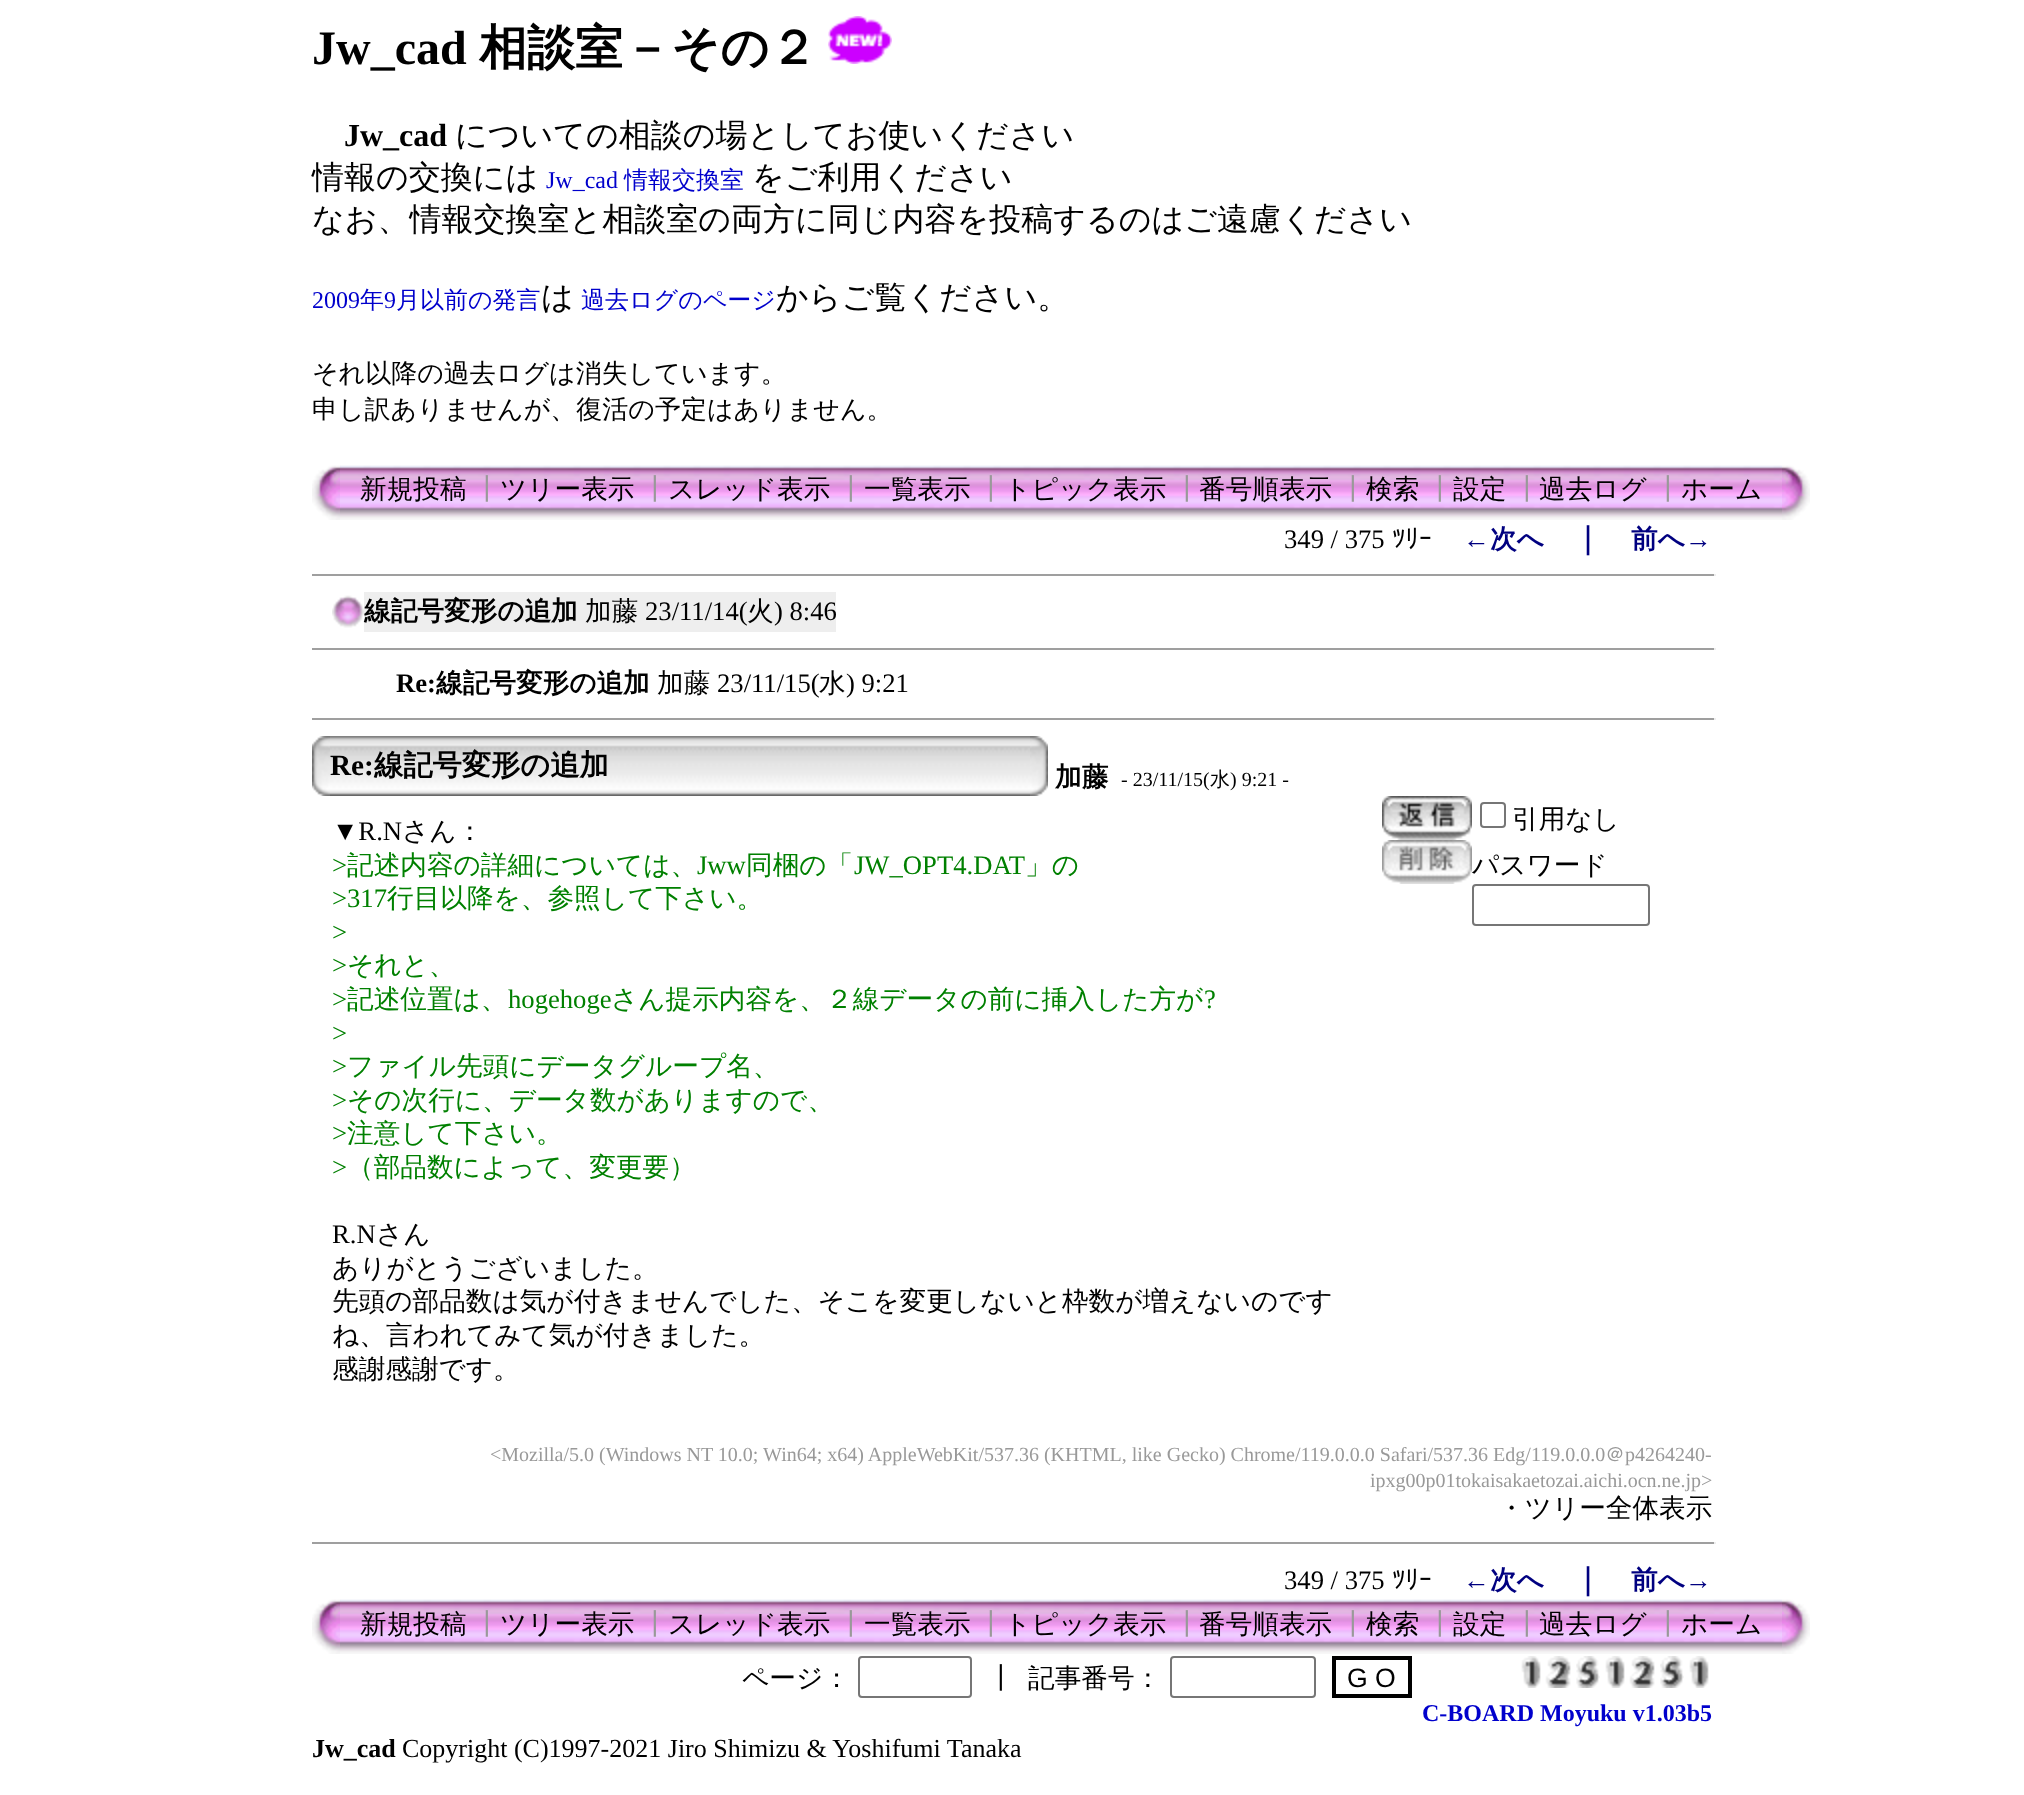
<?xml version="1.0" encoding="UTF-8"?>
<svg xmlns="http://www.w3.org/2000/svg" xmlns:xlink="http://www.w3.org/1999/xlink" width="2024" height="1795">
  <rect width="100%" height="100%" fill="#ffffff" />
  <image x="828" y="16" width="64" height="48" xlink:href="image1.png" />
  <image x="312" y="465" width="28" height="55" xlink:href="image2.png" />
  <image x="340" y="465" width="1442" height="55" xlink:href="image3.png" />
  <image x="1782" y="465" width="28" height="55" xlink:href="image4.png" />
  <rect x="312" y="574" width="1404" height="2" fill="#9f9f9f" />
  <rect x="1714" y="574" width="2" height="2" fill="#eeeeee" />
  <image x="332" y="595" width="32" height="33" xlink:href="image5.png" />
  <rect x="364" y="592" width="472" height="40" fill="#eeeeee" />
  <rect x="312" y="648" width="1404" height="2" fill="#9f9f9f" />
  <rect x="1714" y="648" width="2" height="2" fill="#eeeeee" />
  <rect x="312" y="718" width="1404" height="2" fill="#9f9f9f" />
  <rect x="1714" y="718" width="2" height="2" fill="#eeeeee" />
  <image x="312" y="736" width="18" height="60" xlink:href="image6.png" />
  <image x="330" y="736" width="700" height="60" xlink:href="image7.png" />
  <image x="1030" y="736" width="18" height="60" xlink:href="image8.png" />
  <image x="1382" y="796" width="90" height="44" xlink:href="image9.png" />
  <rect x="1481" y="803" width="24" height="24" rx="3" fill="none" stroke="#767676" stroke-width="2" />
  <image x="1382" y="840" width="90" height="44" xlink:href="image10.png" />
  <rect x="1473" y="885" width="176" height="40" rx="3" fill="none" stroke="#767676" stroke-width="2" />
  <rect x="312" y="1542" width="1404" height="2" fill="#9f9f9f" />
  <rect x="1714" y="1542" width="2" height="2" fill="#eeeeee" />
  <image x="312" y="1599" width="28" height="55" xlink:href="image2.png" />
  <image x="340" y="1599" width="1442" height="55" xlink:href="image3.png" />
  <image x="1782" y="1599" width="28" height="55" xlink:href="image4.png" />
  <rect x="859" y="1657" width="112" height="40" rx="3" fill="none" stroke="#767676" stroke-width="2" />
  <rect x="1171" y="1657" width="144" height="40" rx="3" fill="none" stroke="#767676" stroke-width="2" />
  <rect x="1334" y="1658" width="76" height="38" fill="none" stroke="#000000" stroke-width="4" />
  <image x="1521" y="1656" width="20" height="32" xlink:href="image11.png" />
  <image x="1545" y="1656" width="26" height="32" xlink:href="image12.png" />
  <image x="1576" y="1656" width="24" height="32" xlink:href="image13.png" />
  <image x="1605" y="1656" width="20" height="32" xlink:href="image11.png" />
  <image x="1629" y="1656" width="26" height="32" xlink:href="image12.png" />
  <image x="1660" y="1656" width="24" height="32" xlink:href="image13.png" />
  <image x="1689" y="1656" width="20" height="32" xlink:href="image11.png" />
  <text x="312" y="64" style="font-family: Liberation Serif; font-size: 48px; font-weight: bold; fill: #000000">Jw_cad</text>
  <text x="479" y="64" style="font-family: WenQuanYi Zen Hei; font-size: 48px; font-weight: bold; fill: #000000">相談室－その２</text>
  <text x="344" y="146" style="font-family: Liberation Serif; font-size: 32px; font-weight: bold; fill: #000000">Jw_cad</text>
  <text x="455" y="146" style="font-family: WenQuanYi Zen Hei; font-size: 32px; font-weight: 500; fill: #000000">についての相談の場としてお使いください</text>
  <text x="312" y="188" style="font-family: WenQuanYi Zen Hei; font-size: 32px; font-weight: 500; fill: #000000">情報の交換には</text>
  <text x="546" y="188" style="font-family: Liberation Serif; font-size: 24px; fill: #0000cc">Jw_cad</text>
  <text x="624" y="188" style="font-family: WenQuanYi Zen Hei; font-size: 24px; font-weight: 500; fill: #0000cc">情報交換室</text>
  <text x="752" y="188" style="font-family: WenQuanYi Zen Hei; font-size: 32px; font-weight: 500; fill: #000000">をご利用ください</text>
  <text x="312" y="230" style="font-family: WenQuanYi Zen Hei; font-size: 32px; font-weight: 500; fill: #000000">なお、情報交換室と相談室の両方に同じ内容を投稿するのはご遠慮ください</text>
  <text x="312" y="308" style="font-family: Liberation Serif; font-size: 24px; fill: #0000cc">2009</text>
  <text x="360" y="308" style="font-family: WenQuanYi Zen Hei; font-size: 24px; font-weight: 500; fill: #0000cc">年</text>
  <text x="384" y="308" style="font-family: Liberation Serif; font-size: 24px; fill: #0000cc">9</text>
  <text x="396" y="308" style="font-family: WenQuanYi Zen Hei; font-size: 24px; font-weight: 500; fill: #0000cc">月以前の発言</text>
  <text x="541" y="308" style="font-family: WenQuanYi Zen Hei; font-size: 32px; font-weight: 500; fill: #000000">は</text>
  <text x="581" y="308" style="font-family: WenQuanYi Zen Hei; font-size: 24px; font-weight: 500; fill: #0000cc">過去ログのページ</text>
  <text x="776" y="308" style="font-family: WenQuanYi Zen Hei; font-size: 32px; font-weight: 500; fill: #000000">からご覧ください。</text>
  <text x="312" y="382" style="font-family: WenQuanYi Zen Hei; font-size: 26px; font-weight: 500; fill: #000000">それ以降の過去ログは消失しています。</text>
  <text x="312" y="418" style="font-family: WenQuanYi Zen Hei; font-size: 26px; font-weight: 500; fill: #000000">申し訳ありませんが、復活の予定はありません。</text>
  <text x="360" y="498" style="font-family: WenQuanYi Zen Hei; font-size: 26.65px; font-weight: 500; fill: #000000">新規投稿</text>
  <text x="473" y="498" style="font-family: WenQuanYi Zen Hei; font-size: 26.65px; font-weight: 500; fill: #999999">┃</text>
  <text x="500" y="498" style="font-family: WenQuanYi Zen Hei; font-size: 26.65px; font-weight: 500; fill: #000000">ツリー表示</text>
  <text x="641" y="498" style="font-family: WenQuanYi Zen Hei; font-size: 26.65px; font-weight: 500; fill: #999999">┃</text>
  <text x="668" y="498" style="font-family: WenQuanYi Zen Hei; font-size: 26.65px; font-weight: 500; fill: #000000">スレッド表示</text>
  <text x="837" y="498" style="font-family: WenQuanYi Zen Hei; font-size: 26.65px; font-weight: 500; fill: #999999">┃</text>
  <text x="864" y="498" style="font-family: WenQuanYi Zen Hei; font-size: 26.65px; font-weight: 500; fill: #000000">一覧表示</text>
  <text x="977" y="498" style="font-family: WenQuanYi Zen Hei; font-size: 26.65px; font-weight: 500; fill: #999999">┃</text>
  <text x="1004" y="498" style="font-family: WenQuanYi Zen Hei; font-size: 26.65px; font-weight: 500; fill: #000000">トピック表示</text>
  <text x="1173" y="498" style="font-family: WenQuanYi Zen Hei; font-size: 26.65px; font-weight: 500; fill: #999999">┃</text>
  <text x="1199" y="498" style="font-family: WenQuanYi Zen Hei; font-size: 26.65px; font-weight: 500; fill: #000000">番号順表示</text>
  <text x="1339" y="498" style="font-family: WenQuanYi Zen Hei; font-size: 26.65px; font-weight: 500; fill: #999999">┃</text>
  <text x="1366" y="498" style="font-family: WenQuanYi Zen Hei; font-size: 26.65px; font-weight: 500; fill: #000000">検索</text>
  <text x="1426" y="498" style="font-family: WenQuanYi Zen Hei; font-size: 26.65px; font-weight: 500; fill: #999999">┃</text>
  <text x="1453" y="498" style="font-family: WenQuanYi Zen Hei; font-size: 26.65px; font-weight: 500; fill: #000000">設定</text>
  <text x="1513" y="498" style="font-family: WenQuanYi Zen Hei; font-size: 26.65px; font-weight: 500; fill: #999999">┃</text>
  <text x="1539" y="498" style="font-family: WenQuanYi Zen Hei; font-size: 26.65px; font-weight: 500; fill: #000000">過去ログ</text>
  <text x="1654" y="498" style="font-family: WenQuanYi Zen Hei; font-size: 26.65px; font-weight: 500; fill: #999999">┃</text>
  <text x="1681" y="498" style="font-family: WenQuanYi Zen Hei; font-size: 26.65px; font-weight: 500; fill: #000000">ホーム</text>
  <text x="1284" y="548" style="font-family: Liberation Serif; font-size: 26.65px; fill: #000000">349 / 375</text>
  <text x="1392" y="548" style="font-family: IPAPGothic; font-size: 26.65px; fill: #000000">ﾂﾘｰ</text>
  <text x="1463" y="548" style="font-family: Liberation Serif; font-size: 26.65px; font-weight: bold; fill: #000080">←</text>
  <text x="1490" y="548" style="font-family: WenQuanYi Zen Hei; font-size: 26.65px; font-weight: bold; fill: #000080">次へ</text>
  <text x="1573" y="548" style="font-family: WenQuanYi Zen Hei; font-size: 29.25px; font-weight: bold; fill: #000080">｜</text>
  <text x="1631" y="548" style="font-family: WenQuanYi Zen Hei; font-size: 26.65px; font-weight: bold; fill: #000080">前へ</text>
  <text x="1685" y="548" style="font-family: Liberation Serif; font-size: 26.65px; font-weight: bold; fill: #000080">→</text>
  <text x="364" y="620" style="font-family: WenQuanYi Zen Hei; font-size: 26.65px; font-weight: bold; fill: #000000">線記号変形の追加</text>
  <text x="585" y="620" style="font-family: WenQuanYi Zen Hei; font-size: 26.65px; font-weight: 500; fill: #000000">加藤</text>
  <text x="645" y="620" style="font-family: Liberation Serif; font-size: 26.65px; fill: #000000">23/11/14(</text>
  <text x="747" y="620" style="font-family: WenQuanYi Zen Hei; font-size: 26.65px; font-weight: 500; fill: #000000">火</text>
  <text x="774" y="620" style="font-family: Liberation Serif; font-size: 26.65px; fill: #000000">) 8:46</text>
  <text x="396" y="692" style="font-family: Liberation Serif; font-size: 26.65px; font-weight: bold; fill: #000000">Re:</text>
  <text x="436" y="692" style="font-family: WenQuanYi Zen Hei; font-size: 26.65px; font-weight: bold; fill: #000000">線記号変形の追加</text>
  <text x="657" y="692" style="font-family: WenQuanYi Zen Hei; font-size: 26.65px; font-weight: 500; fill: #000000">加藤</text>
  <text x="717" y="692" style="font-family: Liberation Serif; font-size: 26.65px; fill: #000000">23/11/15(</text>
  <text x="819" y="692" style="font-family: WenQuanYi Zen Hei; font-size: 26.65px; font-weight: 500; fill: #000000">水</text>
  <text x="846" y="692" style="font-family: Liberation Serif; font-size: 26.65px; fill: #000000">) 9:21</text>
  <text x="330" y="775" style="font-family: Liberation Serif; font-size: 29.25px; font-weight: bold; fill: #000000">Re:</text>
  <text x="374" y="775" style="font-family: WenQuanYi Zen Hei; font-size: 29.25px; font-weight: bold; fill: #000000">線記号変形の追加</text>
  <text x="1055" y="786" style="font-family: WenQuanYi Zen Hei; font-size: 26.65px; font-weight: bold; fill: #000000">加藤</text>
  <text x="1121" y="786" style="font-family: Liberation Serif; font-size: 20px; fill: #000000">- 23/11/15(</text>
  <text x="1210" y="786" style="font-family: WenQuanYi Zen Hei; font-size: 20px; font-weight: 500; fill: #000000">水</text>
  <text x="1230" y="786" style="font-family: Liberation Serif; font-size: 20px; fill: #000000">) 9:21 -</text>
  <text x="332" y="840" style="font-family: Liberation Serif; font-size: 26.65px; fill: #000000">▼R.N</text>
  <text x="402" y="840" style="font-family: WenQuanYi Zen Hei; font-size: 26.65px; font-weight: 500; fill: #000000">さん：</text>
  <text x="332" y="874" style="font-family: Liberation Serif; font-size: 26.65px; fill: #008000">&gt;</text>
  <text x="347" y="874" style="font-family: WenQuanYi Zen Hei; font-size: 26.65px; font-weight: 500; fill: #008000">記述内容の詳細については、</text>
  <text x="697" y="874" style="font-family: Liberation Serif; font-size: 26.65px; fill: #008000">Jww</text>
  <text x="746" y="874" style="font-family: WenQuanYi Zen Hei; font-size: 26.65px; font-weight: 500; fill: #008000">同梱の「</text>
  <text x="854" y="874" style="font-family: Liberation Serif; font-size: 26.65px; fill: #008000">JW_OPT4.DAT</text>
  <text x="1025" y="874" style="font-family: WenQuanYi Zen Hei; font-size: 26.65px; font-weight: 500; fill: #008000">」の</text>
  <text x="332" y="907" style="font-family: Liberation Serif; font-size: 26.65px; fill: #008000">&gt;317</text>
  <text x="387" y="907" style="font-family: WenQuanYi Zen Hei; font-size: 26.65px; font-weight: 500; fill: #008000">行目以降を、参照して下さい。</text>
  <text x="332" y="941" style="font-family: Liberation Serif; font-size: 26.65px; fill: #008000">&gt;</text>
  <text x="332" y="974" style="font-family: Liberation Serif; font-size: 26.65px; fill: #008000">&gt;</text>
  <text x="347" y="974" style="font-family: WenQuanYi Zen Hei; font-size: 26.65px; font-weight: 500; fill: #008000">それと、</text>
  <text x="332" y="1008" style="font-family: Liberation Serif; font-size: 26.65px; fill: #008000">&gt;</text>
  <text x="347" y="1008" style="font-family: WenQuanYi Zen Hei; font-size: 26.65px; font-weight: 500; fill: #008000">記述位置は、</text>
  <text x="508" y="1008" style="font-family: Liberation Serif; font-size: 26.65px; fill: #008000">hogehoge</text>
  <text x="611" y="1008" style="font-family: WenQuanYi Zen Hei; font-size: 26.65px; font-weight: 500; fill: #008000">さん提示内容を、２線データの前に挿入した方が</text>
  <text x="1204" y="1008" style="font-family: Liberation Serif; font-size: 26.65px; fill: #008000">?</text>
  <text x="332" y="1042" style="font-family: Liberation Serif; font-size: 26.65px; fill: #008000">&gt;</text>
  <text x="332" y="1075" style="font-family: Liberation Serif; font-size: 26.65px; fill: #008000">&gt;</text>
  <text x="347" y="1075" style="font-family: WenQuanYi Zen Hei; font-size: 26.65px; font-weight: 500; fill: #008000">ファイル先頭にデータグループ名、</text>
  <text x="332" y="1109" style="font-family: Liberation Serif; font-size: 26.65px; fill: #008000">&gt;</text>
  <text x="347" y="1109" style="font-family: WenQuanYi Zen Hei; font-size: 26.65px; font-weight: 500; fill: #008000">その次行に、データ数がありますので、</text>
  <text x="332" y="1142" style="font-family: Liberation Serif; font-size: 26.65px; fill: #008000">&gt;</text>
  <text x="347" y="1142" style="font-family: WenQuanYi Zen Hei; font-size: 26.65px; font-weight: 500; fill: #008000">注意して下さい。</text>
  <text x="332" y="1176" style="font-family: Liberation Serif; font-size: 26.65px; fill: #008000">&gt;</text>
  <text x="347" y="1176" style="font-family: WenQuanYi Zen Hei; font-size: 26.65px; font-weight: 500; fill: #008000">（部品数によって、変更要）</text>
  <text x="332" y="1243" style="font-family: Liberation Serif; font-size: 26.65px; fill: #000000">R.N</text>
  <text x="376" y="1243" style="font-family: WenQuanYi Zen Hei; font-size: 26.65px; font-weight: 500; fill: #000000">さん</text>
  <text x="332" y="1277" style="font-family: WenQuanYi Zen Hei; font-size: 26.65px; font-weight: 500; fill: #000000">ありがとうございました。</text>
  <text x="332" y="1310" style="font-family: WenQuanYi Zen Hei; font-size: 26.65px; font-weight: 500; fill: #000000">先頭の部品数は気が付きませんでした、そこを変更しないと枠数が増えないのです</text>
  <text x="332" y="1344" style="font-family: WenQuanYi Zen Hei; font-size: 26.65px; font-weight: 500; fill: #000000">ね、言われてみて気が付きました。</text>
  <text x="332" y="1378" style="font-family: WenQuanYi Zen Hei; font-size: 26.65px; font-weight: 500; fill: #000000">感謝感謝です。</text>
  <text x="1512" y="828" style="font-family: WenQuanYi Zen Hei; font-size: 26.65px; font-weight: 500; fill: #000000">引用なし</text>
  <text x="1472" y="874" style="font-family: WenQuanYi Zen Hei; font-size: 26.65px; font-weight: 500; fill: #000000">パスワード</text>
  <text x="490" y="1461" style="font-family: Liberation Serif; font-size: 20px; fill: #999999">&lt;Mozilla/5.0 (Windows NT 10.0; Win64; x64) AppleWebKit/537.36 (KHTML, like Gecko) Chrome/119.0.0.0 Safari/537.36 Edg/119.0.0.0</text>
  <text x="1605" y="1461" style="font-family: WenQuanYi Zen Hei; font-size: 20px; font-weight: 500; fill: #999999">＠</text>
  <text x="1625" y="1461" style="font-family: Liberation Serif; font-size: 20px; fill: #999999">p4264240-</text>
  <text x="1370" y="1487" style="font-family: Liberation Serif; font-size: 20px; fill: #999999">ipxg00p01tokaisakaetozai.aichi.ocn.ne.jp&gt;</text>
  <text x="1498" y="1517" style="font-family: WenQuanYi Zen Hei; font-size: 26.65px; font-weight: 500; fill: #000000">・ツリー全体表示</text>
  <text x="1284" y="1589" style="font-family: Liberation Serif; font-size: 26.65px; fill: #000000">349 / 375</text>
  <text x="1392" y="1589" style="font-family: IPAPGothic; font-size: 26.65px; fill: #000000">ﾂﾘｰ</text>
  <text x="1463" y="1589" style="font-family: Liberation Serif; font-size: 26.65px; font-weight: bold; fill: #000080">←</text>
  <text x="1490" y="1589" style="font-family: WenQuanYi Zen Hei; font-size: 26.65px; font-weight: bold; fill: #000080">次へ</text>
  <text x="1573" y="1589" style="font-family: WenQuanYi Zen Hei; font-size: 29.25px; font-weight: bold; fill: #000080">｜</text>
  <text x="1631" y="1589" style="font-family: WenQuanYi Zen Hei; font-size: 26.65px; font-weight: bold; fill: #000080">前へ</text>
  <text x="1685" y="1589" style="font-family: Liberation Serif; font-size: 26.65px; font-weight: bold; fill: #000080">→</text>
  <text x="360" y="1633" style="font-family: WenQuanYi Zen Hei; font-size: 26.65px; font-weight: 500; fill: #000000">新規投稿</text>
  <text x="473" y="1633" style="font-family: WenQuanYi Zen Hei; font-size: 26.65px; font-weight: 500; fill: #999999">┃</text>
  <text x="500" y="1633" style="font-family: WenQuanYi Zen Hei; font-size: 26.65px; font-weight: 500; fill: #000000">ツリー表示</text>
  <text x="641" y="1633" style="font-family: WenQuanYi Zen Hei; font-size: 26.65px; font-weight: 500; fill: #999999">┃</text>
  <text x="668" y="1633" style="font-family: WenQuanYi Zen Hei; font-size: 26.65px; font-weight: 500; fill: #000000">スレッド表示</text>
  <text x="837" y="1633" style="font-family: WenQuanYi Zen Hei; font-size: 26.65px; font-weight: 500; fill: #999999">┃</text>
  <text x="864" y="1633" style="font-family: WenQuanYi Zen Hei; font-size: 26.65px; font-weight: 500; fill: #000000">一覧表示</text>
  <text x="977" y="1633" style="font-family: WenQuanYi Zen Hei; font-size: 26.65px; font-weight: 500; fill: #999999">┃</text>
  <text x="1004" y="1633" style="font-family: WenQuanYi Zen Hei; font-size: 26.65px; font-weight: 500; fill: #000000">トピック表示</text>
  <text x="1173" y="1633" style="font-family: WenQuanYi Zen Hei; font-size: 26.65px; font-weight: 500; fill: #999999">┃</text>
  <text x="1199" y="1633" style="font-family: WenQuanYi Zen Hei; font-size: 26.65px; font-weight: 500; fill: #000000">番号順表示</text>
  <text x="1339" y="1633" style="font-family: WenQuanYi Zen Hei; font-size: 26.65px; font-weight: 500; fill: #999999">┃</text>
  <text x="1366" y="1633" style="font-family: WenQuanYi Zen Hei; font-size: 26.65px; font-weight: 500; fill: #000000">検索</text>
  <text x="1426" y="1633" style="font-family: WenQuanYi Zen Hei; font-size: 26.65px; font-weight: 500; fill: #999999">┃</text>
  <text x="1453" y="1633" style="font-family: WenQuanYi Zen Hei; font-size: 26.65px; font-weight: 500; fill: #000000">設定</text>
  <text x="1513" y="1633" style="font-family: WenQuanYi Zen Hei; font-size: 26.65px; font-weight: 500; fill: #999999">┃</text>
  <text x="1539" y="1633" style="font-family: WenQuanYi Zen Hei; font-size: 26.65px; font-weight: 500; fill: #000000">過去ログ</text>
  <text x="1654" y="1633" style="font-family: WenQuanYi Zen Hei; font-size: 26.65px; font-weight: 500; fill: #999999">┃</text>
  <text x="1681" y="1633" style="font-family: WenQuanYi Zen Hei; font-size: 26.65px; font-weight: 500; fill: #000000">ホーム</text>
  <text x="742" y="1687" style="font-family: WenQuanYi Zen Hei; font-size: 26.65px; font-weight: 500; fill: #000000">ページ：</text>
  <text x="987" y="1687" style="font-family: WenQuanYi Zen Hei; font-size: 26.65px; font-weight: 500; fill: #000000">┃</text>
  <text x="1028" y="1687" style="font-family: WenQuanYi Zen Hei; font-size: 26.65px; font-weight: 500; fill: #000000">記事番号：</text>
  <text x="1347" y="1687" style="font-family: Liberation Sans; font-size: 26.65px; fill: #000000">G O</text>
  <text x="1422" y="1721" style="font-family: Liberation Serif; font-size: 24px; font-weight: bold; fill: #0000cc">C-BOARD Moyuku v1.03b5</text>
  <text x="312" y="1757" style="font-family: Liberation Serif; font-size: 26px; font-weight: bold; fill: #000000">Jw_cad</text>
  <text x="402" y="1757" style="font-family: Liberation Serif; font-size: 26px; fill: #000000">Copyright (C)1997-2021 Jiro Shimizu &amp; Yoshifumi Tanaka</text>
</svg>
